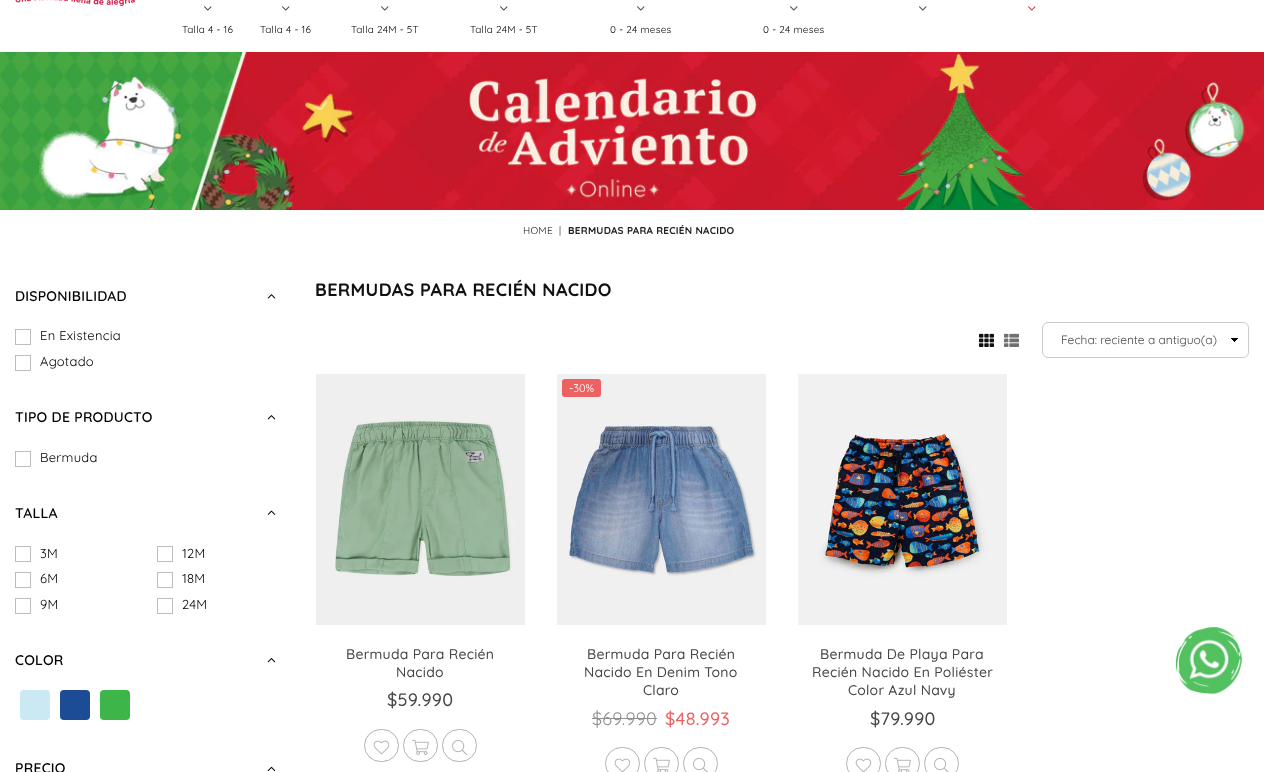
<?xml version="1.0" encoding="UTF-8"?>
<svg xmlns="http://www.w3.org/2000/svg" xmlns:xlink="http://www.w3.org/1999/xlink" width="1264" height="772">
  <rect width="100%" height="100%" fill="#ffffff" />
  <image x="15" y="0" width="120" height="6" xlink:href="image1.png" />
  <image x="919" y="6" width="8" height="5" xlink:href="image2.png" />
  <image x="1028" y="6" width="8" height="5" xlink:href="image3.png" />
  <image x="204" y="6" width="8" height="5" xlink:href="image2.png" />
  <image x="282" y="6" width="8" height="5" xlink:href="image2.png" />
  <image x="381" y="6" width="8" height="5" xlink:href="image2.png" />
  <image x="500" y="6" width="8" height="5" xlink:href="image2.png" />
  <image x="637" y="6" width="8" height="5" xlink:href="image2.png" />
  <image x="790" y="6" width="8" height="5" xlink:href="image2.png" />
  <image x="0" y="52" width="1264" height="158" xlink:href="image4.png" />
  <image x="267" y="294" width="9" height="5" xlink:href="image5.png" />
  <rect x="15.5" y="329.5" width="15" height="15" fill="none" stroke="#bdbdbd" />
  <rect x="15.5" y="355.5" width="15" height="15" fill="none" stroke="#bdbdbd" />
  <image x="267" y="415" width="9" height="5" xlink:href="image6.png" />
  <rect x="15.5" y="451.5" width="15" height="15" fill="none" stroke="#bdbdbd" />
  <image x="267" y="510" width="9" height="5" xlink:href="image7.png" />
  <rect x="15.5" y="546.5" width="15" height="15" fill="none" stroke="#bdbdbd" />
  <rect x="157.5" y="546.5" width="15" height="15" fill="none" stroke="#bdbdbd" />
  <rect x="15.5" y="572.5" width="15" height="15" fill="none" stroke="#bdbdbd" />
  <rect x="157.5" y="572.5" width="15" height="15" fill="none" stroke="#bdbdbd" />
  <rect x="15.5" y="598.5" width="15" height="15" fill="none" stroke="#bdbdbd" />
  <rect x="157.5" y="598.5" width="15" height="15" fill="none" stroke="#bdbdbd" />
  <image x="267" y="658" width="9" height="5" xlink:href="image8.png" />
  <rect x="20" y="690" width="30" height="30" rx="4" fill="#cae9f3" />
  <rect x="60" y="690" width="30" height="30" rx="4" fill="#1c4c96" />
  <rect x="100" y="690" width="30" height="30" rx="4" fill="#3db549" />
  <image x="267" y="766" width="9" height="6" xlink:href="image9.png" />
  <image x="979" y="333" width="15" height="14" xlink:href="image10.png" />
  <image x="1004" y="333" width="15" height="14" xlink:href="image11.png" />
  <image x="1231" y="338" width="7" height="4" xlink:href="image12.png" />
  <rect x="1042.5" y="322.5" width="206" height="35" rx="5.5" fill="none" stroke="#cbcbcb" />
  <image x="316" y="374" width="209" height="251" xlink:href="image13.png" />
  <rect x="364.5" y="729.5" width="34" height="32" rx="16" fill="none" stroke="#b2b2b2" />
  <image x="373" y="740" width="17" height="15" xlink:href="image14.png" />
  <rect x="403.5" y="729.5" width="34" height="32" rx="16" fill="none" stroke="#b2b2b2" />
  <image x="412" y="739" width="17" height="16" xlink:href="image15.png" />
  <rect x="442.5" y="729.5" width="34" height="32" rx="16" fill="none" stroke="#b2b2b2" />
  <image x="452" y="740" width="15" height="15" xlink:href="image16.png" />
  <image x="557" y="374" width="209" height="251" xlink:href="image17.png" />
  <rect x="562" y="379" width="39" height="18" rx="3" fill="#ec6262" />
  <rect x="592" y="718" width="65" height="1" fill="#909090" />
  <rect x="605.5" y="747.5" width="34" height="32" rx="16" fill="none" stroke="#b2b2b2" />
  <image x="614" y="758" width="17" height="14" xlink:href="image18.png" />
  <rect x="644.5" y="747.5" width="34" height="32" rx="16" fill="none" stroke="#b2b2b2" />
  <image x="653" y="757" width="17" height="15" xlink:href="image19.png" />
  <rect x="683.5" y="747.5" width="34" height="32" rx="16" fill="none" stroke="#b2b2b2" />
  <image x="693" y="758" width="15" height="14" xlink:href="image20.png" />
  <image x="798" y="374" width="209" height="251" xlink:href="image21.png" />
  <rect x="846.5" y="747.5" width="34" height="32" rx="16" fill="none" stroke="#b2b2b2" />
  <image x="855" y="758" width="17" height="14" xlink:href="image18.png" />
  <rect x="885.5" y="747.5" width="34" height="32" rx="16" fill="none" stroke="#b2b2b2" />
  <image x="894" y="757" width="17" height="15" xlink:href="image19.png" />
  <rect x="924.5" y="747.5" width="34" height="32" rx="16" fill="none" stroke="#b2b2b2" />
  <image x="934" y="758" width="15" height="14" xlink:href="image20.png" />
  <image x="1175" y="627" width="68" height="68" xlink:href="image22.png" />
  <text x="182" y="33" style="font-family: Quicksand; font-size: 10px; letter-spacing: 0.25px; fill: #000000">Talla 4 - 16</text>
  <text x="260" y="33" style="font-family: Quicksand; font-size: 10px; letter-spacing: 0.25px; fill: #000000">Talla 4 - 16</text>
  <text x="351" y="33" style="font-family: Quicksand; font-size: 10px; letter-spacing: 0.25px; fill: #000000">Talla 24M - 5T</text>
  <text x="470" y="33" style="font-family: Quicksand; font-size: 10px; letter-spacing: 0.25px; fill: #000000">Talla 24M - 5T</text>
  <text x="610" y="33" style="font-family: Quicksand; font-size: 10px; letter-spacing: 0.25px; fill: #000000">0 - 24 meses</text>
  <text x="763" y="33" style="font-family: Quicksand; font-size: 10px; letter-spacing: 0.25px; fill: #000000">0 - 24 meses</text>
  <text x="523" y="234" style="font-family: Quicksand; font-size: 10px; letter-spacing: 0.25px; fill: #222222">HOME</text>
  <text x="559" y="234" style="font-family: Quicksand; font-size: 10px; letter-spacing: 0.25px; fill: #222222">|</text>
  <text x="568" y="234" style="font-family: Quicksand; font-size: 10px; font-weight: bold; letter-spacing: 0.25px; fill: #222222">BERMUDAS PARA RECIÉN NACIDO</text>
  <text x="15" y="301" style="font-family: Quicksand; font-size: 14px; font-weight: 600; letter-spacing: 0.25px; fill: #000000">DISPONIBILIDAD</text>
  <text x="40" y="340" style="font-family: Quicksand; font-size: 13px; letter-spacing: 0.25px; fill: #000000">En Existencia</text>
  <text x="40" y="366" style="font-family: Quicksand; font-size: 13px; letter-spacing: 0.25px; fill: #000000">Agotado</text>
  <text x="15" y="422" style="font-family: Quicksand; font-size: 14px; font-weight: 600; letter-spacing: 0.25px; fill: #000000">TIPO DE PRODUCTO</text>
  <text x="40" y="462" style="font-family: Quicksand; font-size: 13px; letter-spacing: 0.25px; fill: #000000">Bermuda</text>
  <text x="15" y="518" style="font-family: Quicksand; font-size: 14px; font-weight: 600; letter-spacing: 0.25px; fill: #000000">TALLA</text>
  <text x="40" y="558" style="font-family: Quicksand; font-size: 13px; letter-spacing: 0.25px; fill: #000000">3M</text>
  <text x="182" y="558" style="font-family: Quicksand; font-size: 13px; letter-spacing: 0.25px; fill: #000000">12M</text>
  <text x="40" y="583" style="font-family: Quicksand; font-size: 13px; letter-spacing: 0.25px; fill: #000000">6M</text>
  <text x="182" y="583" style="font-family: Quicksand; font-size: 13px; letter-spacing: 0.25px; fill: #000000">18M</text>
  <text x="40" y="609" style="font-family: Quicksand; font-size: 13px; letter-spacing: 0.25px; fill: #000000">9M</text>
  <text x="182" y="609" style="font-family: Quicksand; font-size: 13px; letter-spacing: 0.25px; fill: #000000">24M</text>
  <text x="15" y="665" style="font-family: Quicksand; font-size: 14px; font-weight: 600; letter-spacing: 0.25px; fill: #000000">COLOR</text>
  <text x="15" y="773" style="font-family: Quicksand; font-size: 14px; font-weight: 600; letter-spacing: 0.25px; fill: #000000">PRECIO</text>
  <text x="315" y="296" style="font-family: Quicksand; font-size: 18px; font-weight: bold; letter-spacing: 0.35px; fill: #111111">BERMUDAS PARA RECIÉN NACIDO</text>
  <text x="1061" y="344" style="font-family: Quicksand; font-size: 12px; fill: #474747">Fecha: reciente a antiguo(a)</text>
  <text x="346" y="659" style="font-family: Quicksand; font-size: 14px; font-weight: 500; letter-spacing: 0.25px; fill: #474747">Bermuda Para Recién</text>
  <text x="396" y="677" style="font-family: Quicksand; font-size: 14px; font-weight: 500; letter-spacing: 0.25px; fill: #474747">Nacido</text>
  <text x="387" y="706" style="font-family: Quicksand; font-size: 18px; font-weight: 500; letter-spacing: 0.25px; fill: #474747">$59.990</text>
  <text x="569" y="392" style="font-family: Quicksand; font-size: 11px; fill: #ffffff">-30%</text>
  <text x="587" y="659" style="font-family: Quicksand; font-size: 14px; font-weight: 500; letter-spacing: 0.25px; fill: #474747">Bermuda Para Recién</text>
  <text x="584" y="677" style="font-family: Quicksand; font-size: 14px; font-weight: 500; letter-spacing: 0.25px; fill: #474747">Nacido En Denim Tono</text>
  <text x="643" y="695" style="font-family: Quicksand; font-size: 14px; font-weight: 500; letter-spacing: 0.25px; fill: #474747">Claro</text>
  <text x="592" y="725" style="font-family: Quicksand; font-size: 18px; letter-spacing: 0.25px; fill: #909090">$69.990</text>
  <text x="665" y="725" style="font-family: Quicksand; font-size: 18px; font-weight: 500; letter-spacing: 0.25px; fill: #ec6262">$48.993</text>
  <text x="820" y="659" style="font-family: Quicksand; font-size: 14px; font-weight: 500; letter-spacing: 0.25px; fill: #474747">Bermuda De Playa Para</text>
  <text x="812" y="677" style="font-family: Quicksand; font-size: 14px; font-weight: 500; letter-spacing: 0.25px; fill: #474747">Recién Nacido En Poliéster</text>
  <text x="848" y="695" style="font-family: Quicksand; font-size: 14px; font-weight: 500; letter-spacing: 0.25px; fill: #474747">Color Azul Navy</text>
  <text x="870" y="725" style="font-family: Quicksand; font-size: 18px; font-weight: 500; letter-spacing: 0.25px; fill: #474747">$79.990</text>
</svg>
